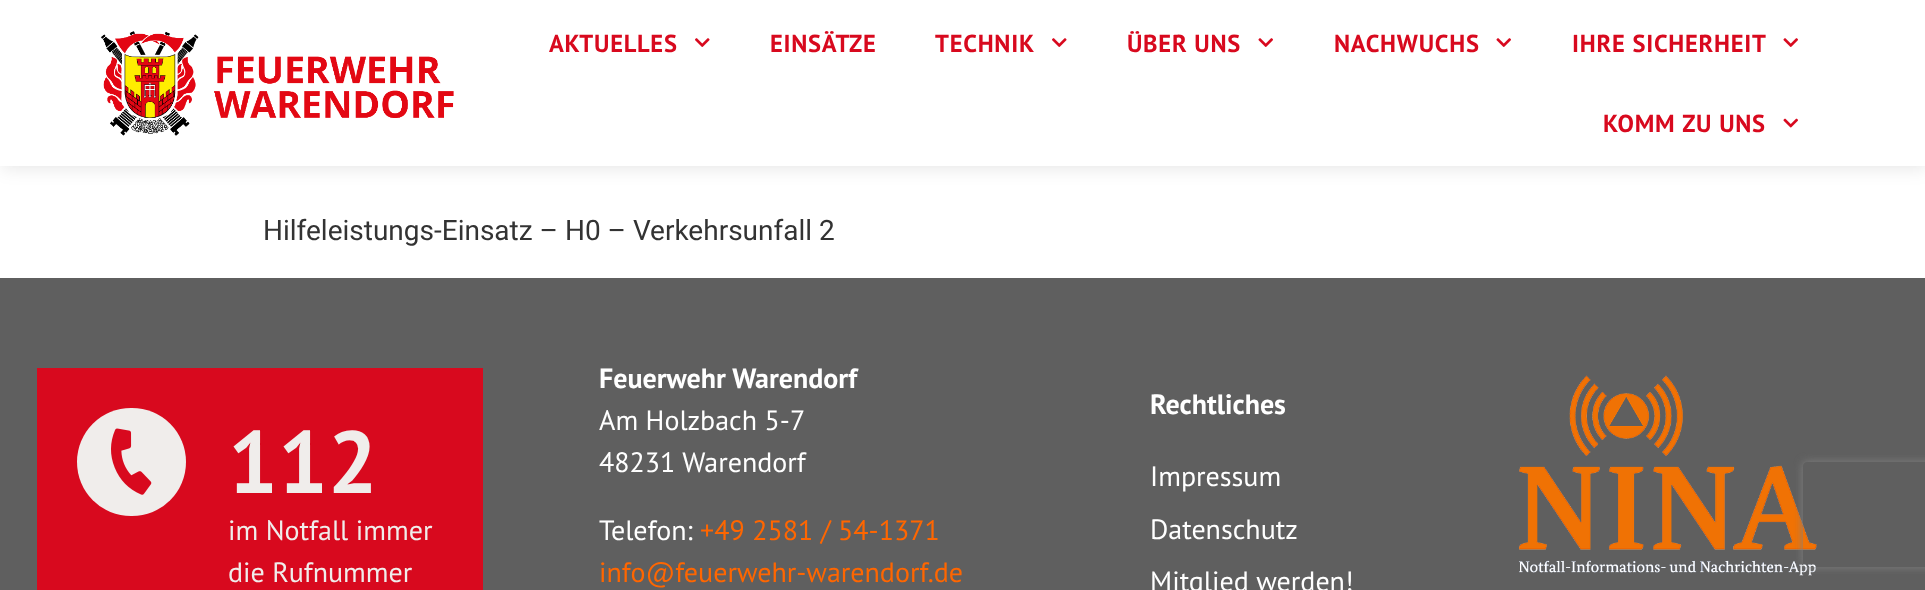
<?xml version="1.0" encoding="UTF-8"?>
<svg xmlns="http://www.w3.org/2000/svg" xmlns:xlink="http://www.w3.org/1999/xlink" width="1925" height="590">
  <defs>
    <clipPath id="clip1"><path d="M 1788 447 h 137 v 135 h -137 z m 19 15 h 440 c 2 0 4 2 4 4 v 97 c 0 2 -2 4 -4 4 h -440 c -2 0 -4 -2 -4 -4 v -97 c 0 -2 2 -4 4 -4 z" clip-rule="evenodd" /></clipPath>
  </defs>
  <rect width="100%" height="100%" fill="#ffffff" />
  <rect x="2" y="2" width="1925" height="166" fill="#000000" fill-opacity="0.1" filter="blur(9px)" />
  <rect width="1925" height="166" fill="#ffffff" />
  <image x="100" y="31" width="354" height="105" xlink:href="image1.png" />
  <image x="695" y="38" width="15" height="9" xlink:href="image2.png" />
  <image x="1052" y="38" width="15" height="9" xlink:href="image2.png" />
  <image x="1258" y="38" width="15" height="9" xlink:href="image3.png" />
  <image x="1496" y="38" width="15" height="9" xlink:href="image3.png" />
  <image x="1783" y="38" width="15" height="9" xlink:href="image3.png" />
  <image x="1783" y="118" width="15" height="10" xlink:href="image4.png" />
  <rect y="278" width="1925" height="312" fill="#5f5f5f" />
  <rect x="37" y="368" width="446" height="222" fill="#d8091e" />
  <rect x="77" y="408" width="109" height="108" rx="54" fill="#f0edeb" />
  <image x="111" y="428" width="41" height="67" xlink:href="image5.png" />
  <image x="1519" y="375" width="298" height="201" xlink:href="image6.png" />
  <g clip-path="url(#clip1)">
    <rect x="1803" y="462" width="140" height="105" rx="4" fill="#808080" filter="blur(4.5px)" />
  </g>
  <text x="549" y="52" style="font-family: PT Sans; font-size: 24.5px; font-weight: bold; letter-spacing: 0.75px; fill: #d8091e">AKTUELLES</text>
  <text x="770" y="52" style="font-family: PT Sans; font-size: 24.5px; font-weight: bold; letter-spacing: 0.75px; fill: #d8091e">EINSÄTZE</text>
  <text x="935" y="52" style="font-family: PT Sans; font-size: 24.5px; font-weight: bold; letter-spacing: 0.75px; fill: #d8091e">TECHNIK</text>
  <text x="1127" y="52" style="font-family: PT Sans; font-size: 24.5px; font-weight: bold; letter-spacing: 0.75px; fill: #d8091e">ÜBER UNS</text>
  <text x="1334" y="52" style="font-family: PT Sans; font-size: 24.5px; font-weight: bold; letter-spacing: 0.75px; fill: #d8091e">NACHWUCHS</text>
  <text x="1572" y="52" style="font-family: PT Sans; font-size: 24.5px; font-weight: bold; letter-spacing: 0.75px; fill: #d8091e">IHRE SICHERHEIT</text>
  <text x="1603" y="132" style="font-family: PT Sans; font-size: 24.5px; font-weight: bold; letter-spacing: 0.75px; fill: #d8091e">KOMM ZU UNS</text>
  <text x="263" y="240" style="font-family: Roboto; font-size: 28px; fill: #333333">Hilfeleistungs-Einsatz – H0 – Verkehrsunfall 2</text>
  <text x="228" y="493" style="font-family: PT Sans; font-size: 88px; font-weight: bold; fill: #f0edeb">112</text>
  <text x="228" y="540" style="font-family: PT Sans; font-size: 28px; fill: #f0edeb">im Notfall immer</text>
  <text x="228" y="582" style="font-family: PT Sans; font-size: 28px; fill: #f0edeb">die Rufnummer</text>
  <text x="599" y="388" style="font-family: PT Sans; font-size: 28px; font-weight: bold; fill: #ffffff">Feuerwehr Warendorf</text>
  <text x="599" y="430" style="font-family: PT Sans; font-size: 28px; fill: #ffffff">Am Holzbach 5-7</text>
  <text x="599" y="472" style="font-family: PT Sans; font-size: 28px; fill: #ffffff">48231 Warendorf</text>
  <text x="599" y="540" style="font-family: PT Sans; font-size: 28px; fill: #ffffff">Telefon:</text>
  <text x="700" y="540" style="font-family: PT Sans; font-size: 28px; fill: #ff6600">+49 2581 / 54-1371</text>
  <text x="599" y="582" style="font-family: PT Sans; font-size: 28px; fill: #ff6600">info@feuerwehr-warendorf.de</text>
  <text x="1150" y="414" style="font-family: PT Sans; font-size: 28px; font-weight: bold; fill: #ffffff">Rechtliches</text>
  <text x="1150" y="486" style="font-family: PT Sans; font-size: 28px; fill: #ffffff">Impressum</text>
  <text x="1150" y="539" style="font-family: PT Sans; font-size: 28px; fill: #ffffff">Datenschutz</text>
  <text x="1150" y="591" style="font-family: PT Sans; font-size: 28px; fill: #ffffff">Mitglied werden!</text>
</svg>
